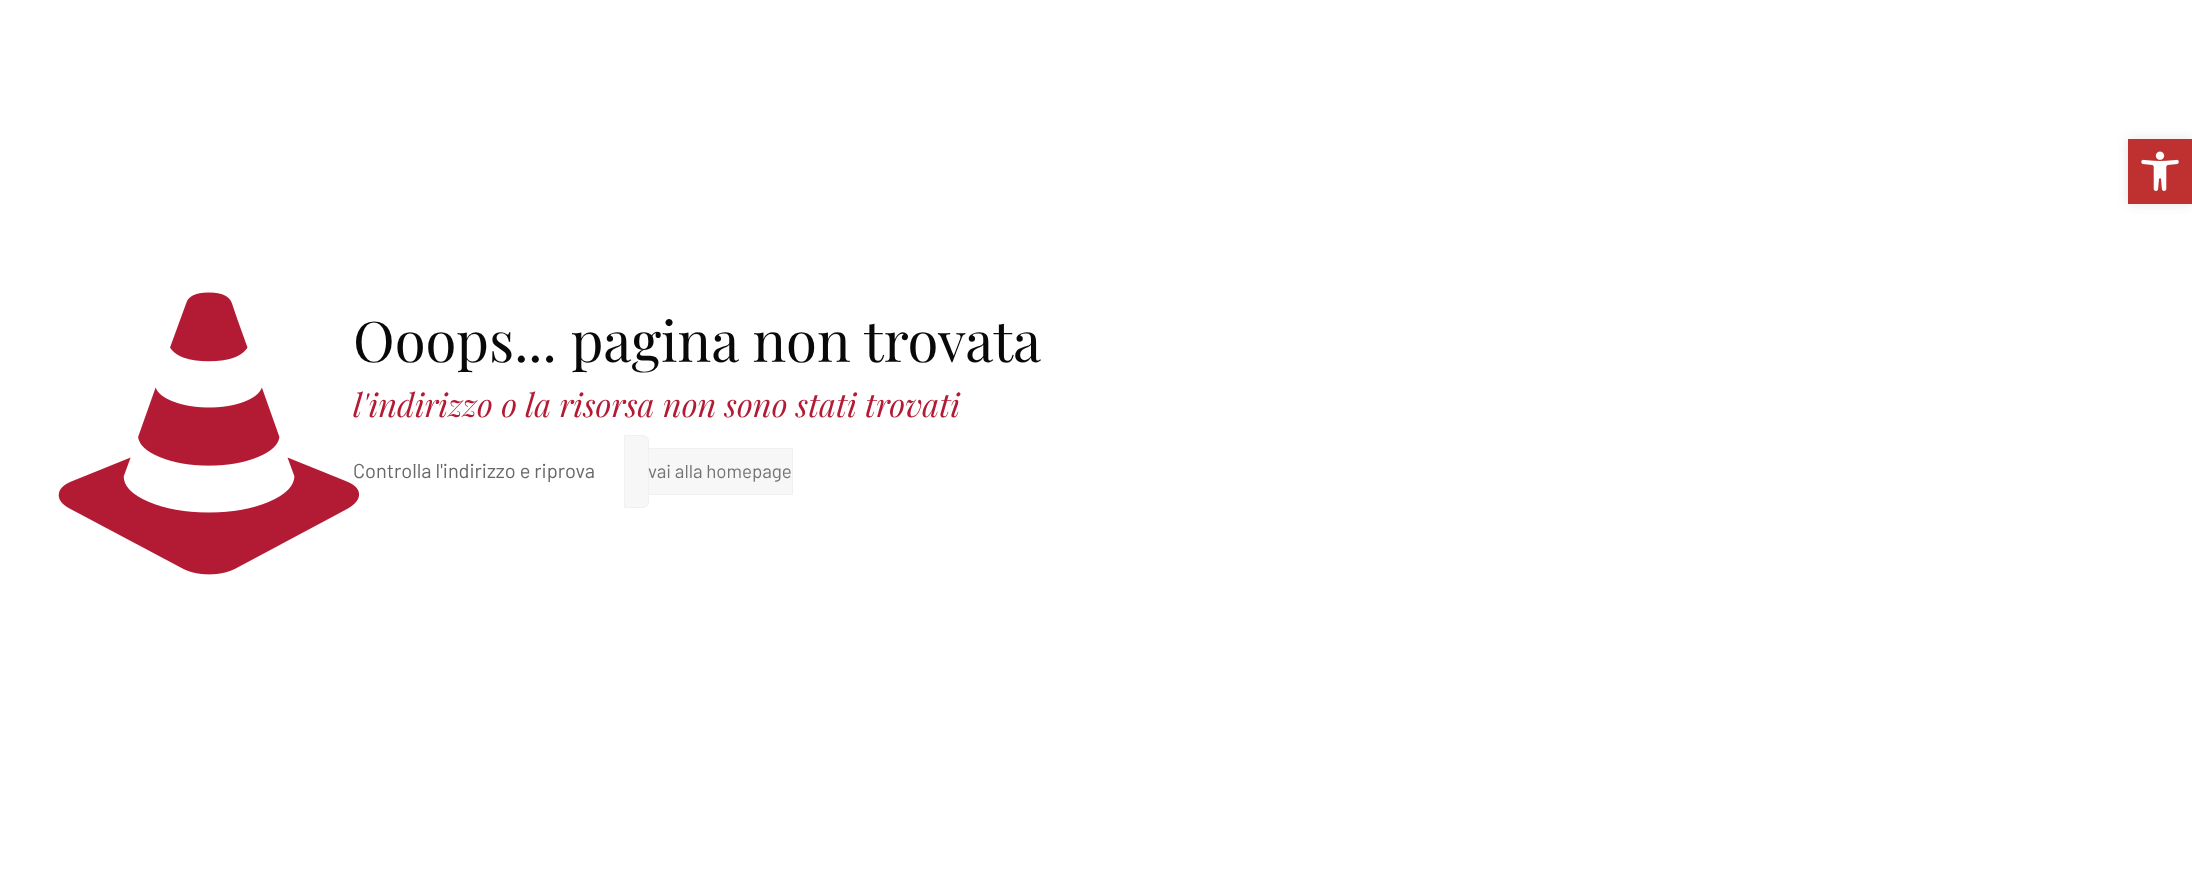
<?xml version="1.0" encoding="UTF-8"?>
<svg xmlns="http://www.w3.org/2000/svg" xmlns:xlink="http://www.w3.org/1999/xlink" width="2192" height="896">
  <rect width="100%" height="100%" fill="#ffffff" />
  <rect x="2128" y="139" width="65" height="65" fill="#000000" fill-opacity="0.1" filter="blur(6px)" />
  <rect x="2128" y="139" width="64" height="65" fill="#bf3131" />
  <image x="2141" y="151" width="38" height="40" xlink:href="image1.png" />
  <image x="58" y="292" width="302" height="283" xlink:href="image2.png" />
  <rect x="649" y="449" width="143" height="45" fill="#f7f7f7" />
  <rect x="624.5" y="448.5" width="168" height="46" fill="none" stroke="#f0f0f0" />
  <path d="M 624.5 435.5 h 18.5 c 3 0 5.5 2.5 5.5 5.5 v 61 c 0 3 -2.5 5.5 -5.5 5.5 h -18.5 z" fill="#f7f7f7" stroke="#f0f0f0" />
  <text x="353" y="362" style="font-family: Playfair Display; font-size: 56.25px; fill: #0a0909">Ooops... pagina non trovata</text>
  <text x="353" y="417" style="font-family: Playfair Display; font-size: 32.5px; font-style: italic; fill: #b31a34">l'indirizzo o la risorsa non sono stati trovati</text>
  <text x="353" y="478" style="font-family: Barlow; font-size: 20px; fill: #696767">Controlla l'indirizzo e riprova</text>
  <text x="648" y="478" style="font-family: Barlow; font-size: 18.75px; fill: #747474">vai alla homepage</text>
</svg>
